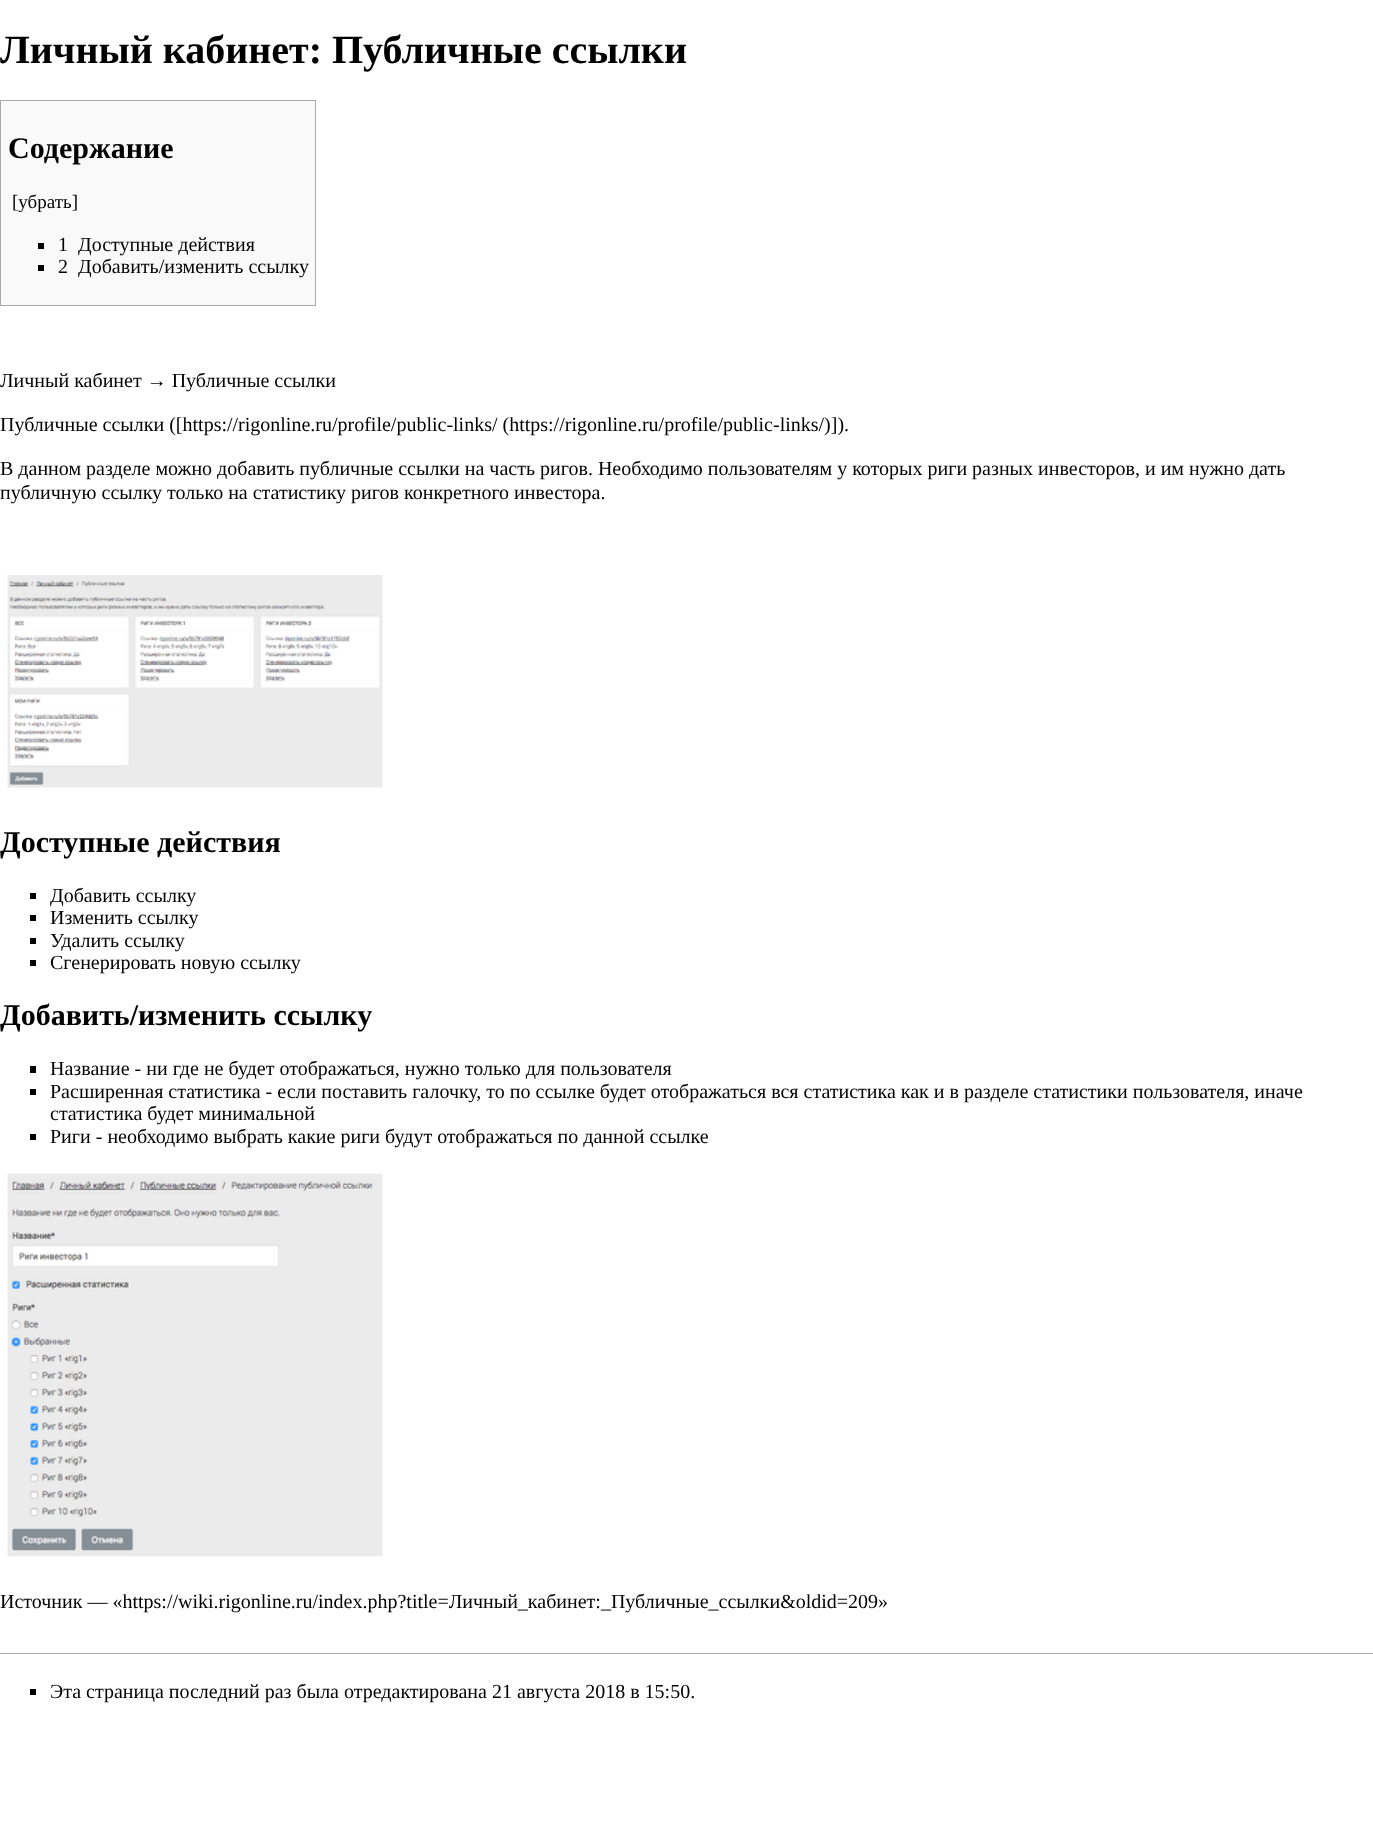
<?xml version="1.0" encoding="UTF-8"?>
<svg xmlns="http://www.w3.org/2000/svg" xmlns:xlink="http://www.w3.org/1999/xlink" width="1373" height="1829">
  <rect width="100%" height="100%" fill="#ffffff" />
  <rect x="0.5" y="100.5" width="315" height="205" fill="#f9f9f9" stroke="#aaaaaa" />
  <rect x="38" y="243" width="6" height="6" fill="#000000" />
  <rect x="38" y="265" width="6" height="6" fill="#000000" />
  <image x="7" y="575" width="376" height="213" xlink:href="image1.png" />
  <rect x="30" y="893" width="6" height="6" fill="#000000" />
  <rect x="30" y="915" width="6" height="6" fill="#000000" />
  <rect x="30" y="938" width="6" height="6" fill="#000000" />
  <rect x="30" y="960" width="6" height="6" fill="#000000" />
  <rect x="30" y="1066" width="6" height="7" fill="#000000" />
  <rect x="30" y="1089" width="6" height="6" fill="#000000" />
  <rect x="30" y="1134" width="6" height="6" fill="#000000" />
  <image x="7" y="1173" width="376" height="384" xlink:href="image2.png" />
  <rect y="1653" width="1373" height="1" fill="#aaaaaa" />
  <rect x="30" y="1689" width="6" height="6" fill="#000000" />
  <text x="0" y="63" style="font-family: Liberation Serif; font-size: 40px; font-weight: bold; fill: #000000">Личный кабинет: Публичные ссылки</text>
  <text x="8" y="158" style="font-family: Liberation Serif; font-size: 30px; font-weight: bold; fill: #000000">Содержание</text>
  <text x="12" y="208" style="font-family: Liberation Serif; font-size: 19px; fill: #000000">[убрать]</text>
  <text x="58" y="251" style="font-family: Liberation Serif; font-size: 20px; fill: #000000">1</text>
  <text x="78" y="251" style="font-family: Liberation Serif; font-size: 20px; fill: #000000">Доступные действия</text>
  <text x="58" y="273" style="font-family: Liberation Serif; font-size: 20px; fill: #000000">2</text>
  <text x="78" y="273" style="font-family: Liberation Serif; font-size: 20px; fill: #000000">Добавить/изменить ссылку</text>
  <text x="0" y="387" style="font-family: Liberation Serif; font-size: 20px; fill: #000000">Личный кабинет → Публичные ссылки</text>
  <text x="0" y="431" style="font-family: Liberation Serif; font-size: 20px; fill: #000000">Публичные ссылки ([https://rigonline.ru/profile/public-links/ (https://rigonline.ru/profile/public-links/)]).</text>
  <text x="0" y="475" style="font-family: Liberation Serif; font-size: 20px; fill: #000000">В данном разделе можно добавить публичные ссылки на часть ригов. Необходимо пользователям у которых риги разных инвесторов, и им нужно дать</text>
  <text x="0" y="499" style="font-family: Liberation Serif; font-size: 20px; fill: #000000">публичную ссылку только на статистику ригов конкретного инвестора.</text>
  <text x="0" y="852" style="font-family: Liberation Serif; font-size: 30px; font-weight: bold; fill: #000000">Доступные действия</text>
  <text x="50" y="902" style="font-family: Liberation Serif; font-size: 20px; fill: #000000">Добавить ссылку</text>
  <text x="50" y="924" style="font-family: Liberation Serif; font-size: 20px; fill: #000000">Изменить ссылку</text>
  <text x="50" y="947" style="font-family: Liberation Serif; font-size: 20px; fill: #000000">Удалить ссылку</text>
  <text x="50" y="969" style="font-family: Liberation Serif; font-size: 20px; fill: #000000">Сгенерировать новую ссылку</text>
  <text x="0" y="1025" style="font-family: Liberation Serif; font-size: 30px; font-weight: bold; fill: #000000">Добавить/изменить ссылку</text>
  <text x="50" y="1075" style="font-family: Liberation Serif; font-size: 20px; fill: #000000">Название - ни где не будет отображаться, нужно только для пользователя</text>
  <text x="50" y="1098" style="font-family: Liberation Serif; font-size: 20px; fill: #000000">Расширенная статистика - если поставить галочку, то по ссылке будет отображаться вся статистика как и в разделе статистики пользователя, иначе</text>
  <text x="50" y="1120" style="font-family: Liberation Serif; font-size: 20px; fill: #000000">статистика будет минимальной</text>
  <text x="50" y="1143" style="font-family: Liberation Serif; font-size: 20px; fill: #000000">Риги - необходимо выбрать какие риги будут отображаться по данной ссылке</text>
  <text x="0" y="1608" style="font-family: Liberation Serif; font-size: 20px; fill: #000000">Источник — «https://wiki.rigonline.ru/index.php?title=Личный_кабинет:_Публичные_ссылки&amp;oldid=209»</text>
  <text x="50" y="1698" style="font-family: Liberation Serif; font-size: 20px; fill: #000000">Эта страница последний раз была отредактирована 21 августа 2018 в 15:50.</text>
</svg>
